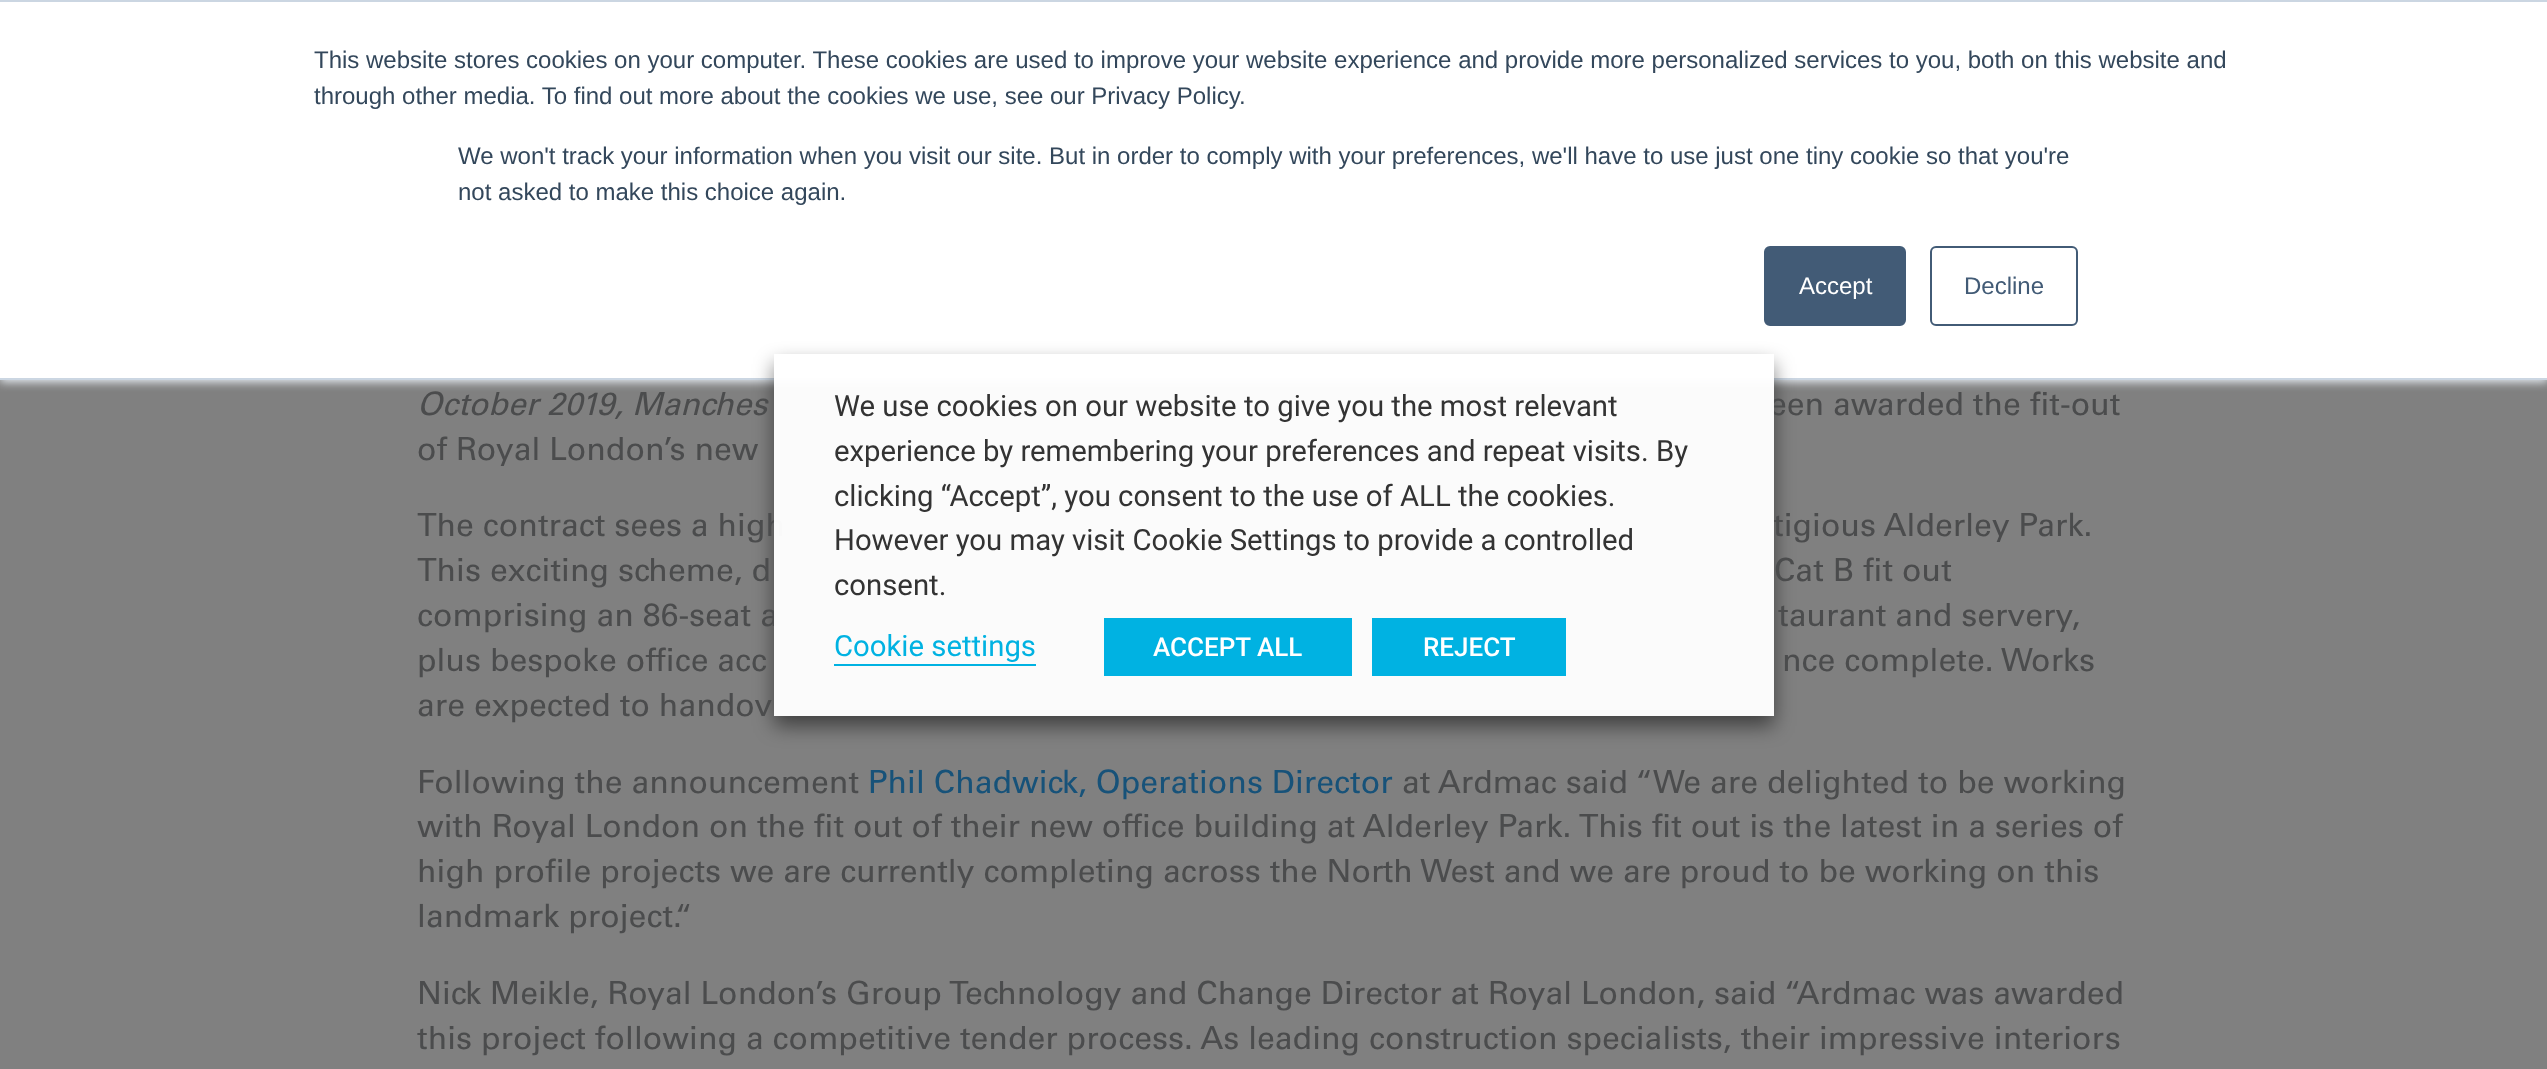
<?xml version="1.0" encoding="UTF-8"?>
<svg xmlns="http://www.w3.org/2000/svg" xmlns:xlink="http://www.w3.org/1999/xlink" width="2547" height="1069">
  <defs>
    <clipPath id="clip1"><path d="M 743 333 h 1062 v 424 h -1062 z m 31 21 h 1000 v 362 h -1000 z" clip-rule="evenodd" /></clipPath>
  </defs>
  <rect width="100%" height="100%" fill="#808080" />
  <rect y="2" width="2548" height="380" fill="#eaf0f6" filter="blur(5px)" />
  <rect y="2" width="2547" height="376" fill="#ffffff" />
  <rect width="2547" height="2" fill="#cbd6e2" />
  <rect y="378" width="2547" height="2" fill="#cbd6e2" />
  <rect x="1765" y="247" width="140" height="78" rx="5" fill="#425b76" stroke="#425b76" stroke-width="2" />
  <rect x="1931" y="247" width="146" height="78" rx="5" fill="none" stroke="#425b76" stroke-width="2" />
  <g clip-path="url(#clip1)">
    <rect x="774" y="364" width="1000" height="362" fill="#000000" fill-opacity="0.5" filter="blur(10px)" />
  </g>
  <text x="314" y="68" style="font-family: Liberation Sans; font-size: 24px; fill: #33475b">This website stores cookies on your computer. These cookies are used to improve your website experience and provide more personalized services to you, both on this website and</text>
  <text x="314" y="104" style="font-family: Liberation Sans; font-size: 24px; fill: #33475b">through other media. To find out more about the cookies we use, see our Privacy Policy.</text>
  <text x="458" y="164" style="font-family: Liberation Sans; font-size: 24px; fill: #33475b">We won't track your information when you visit our site. But in order to comply with your preferences, we'll have to use just one tiny cookie so that you're</text>
  <text x="458" y="200" style="font-family: Liberation Sans; font-size: 24px; fill: #33475b">not asked to make this choice again.</text>
  <text x="1799" y="294" style="font-family: Liberation Sans; font-size: 24px; fill: #ffffff">Accept</text>
  <text x="1964" y="294" style="font-family: Liberation Sans; font-size: 24px; fill: #425b76">Decline</text>
  <text x="417" y="415" style="font-family: 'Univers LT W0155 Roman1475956'; font-size: 32px; font-style: italic; fill: #4b4c4d">October 2019, Manches</text>
  <text x="1769" y="415" style="font-family: 'Univers LT W0155 Roman1475956'; font-size: 32px; fill: #4b4c4d">een awarded the fit-out</text>
  <text x="417" y="460" style="font-family: 'Univers LT W0155 Roman1475956'; font-size: 32px; fill: #4b4c4d">of Royal London’s new</text>
  <text x="417" y="536" style="font-family: 'Univers LT W0155 Roman1475956'; font-size: 32px; fill: #4b4c4d">The contract sees a high</text>
  <text x="1773" y="536" style="font-family: 'Univers LT W0155 Roman1475956'; font-size: 32px; fill: #4b4c4d">tigious Alderley Park.</text>
  <text x="417" y="581" style="font-family: 'Univers LT W0155 Roman1475956'; font-size: 32px; fill: #4b4c4d">This exciting scheme, d</text>
  <text x="1774" y="581" style="font-family: 'Univers LT W0155 Roman1475956'; font-size: 32px; fill: #4b4c4d">Cat B fit out</text>
  <text x="417" y="626" style="font-family: 'Univers LT W0155 Roman1475956'; font-size: 32px; fill: #4b4c4d">comprising an 86-seat a</text>
  <text x="1778" y="626" style="font-family: 'Univers LT W0155 Roman1475956'; font-size: 32px; fill: #4b4c4d">taurant and servery,</text>
  <text x="417" y="671" style="font-family: 'Univers LT W0155 Roman1475956'; font-size: 32px; fill: #4b4c4d">plus bespoke office acc</text>
  <text x="1782" y="671" style="font-family: 'Univers LT W0155 Roman1475956'; font-size: 32px; fill: #4b4c4d">nce complete. Works</text>
  <text x="417" y="716" style="font-family: 'Univers LT W0155 Roman1475956'; font-size: 32px; fill: #4b4c4d">are expected to handov</text>
  <text x="417" y="793" style="font-family: 'Univers LT W0155 Roman1475956'; font-size: 32px; fill: #4b4c4d">Following the announcement</text>
  <text x="868" y="793" style="font-family: 'Univers LT W0155 Roman1475956'; font-size: 32px; fill: #175279">Phil Chadwick, Operations Director</text>
  <text x="1402" y="793" style="font-family: 'Univers LT W0155 Roman1475956'; font-size: 32px; fill: #4b4c4d">at Ardmac said “We are delighted to be working</text>
  <text x="417" y="837" style="font-family: 'Univers LT W0155 Roman1475956'; font-size: 32px; fill: #4b4c4d">with Royal London on the fit out of their new office building at Alderley Park. This fit out is the latest in a series of</text>
  <text x="417" y="882" style="font-family: 'Univers LT W0155 Roman1475956'; font-size: 32px; fill: #4b4c4d">high profile projects we are currently completing across the North West and we are proud to be working on this</text>
  <text x="417" y="927" style="font-family: 'Univers LT W0155 Roman1475956'; font-size: 32px; fill: #4b4c4d">landmark project.“</text>
  <text x="417" y="1004" style="font-family: 'Univers LT W0155 Roman1475956'; font-size: 32px; fill: #4b4c4d">Nick Meikle, Royal London’s Group Technology and Change Director at Royal London, said “Ardmac was awarded</text>
  <text x="417" y="1049" style="font-family: 'Univers LT W0155 Roman1475956'; font-size: 32px; fill: #4b4c4d">this project following a competitive tender process. As leading construction specialists, their impressive interiors</text>
  <rect x="774" y="354" width="1000" height="362" fill="#ffffff" fill-opacity="0.97" />
  <text x="834" y="416" style="font-family: Roboto; font-size: 29.3px; fill: #333333">We use cookies on our website to give you the most relevant</text>
  <text x="834" y="461" style="font-family: Roboto; font-size: 29.3px; fill: #333333">experience by remembering your preferences and repeat visits. By</text>
  <text x="834" y="506" style="font-family: Roboto; font-size: 29.3px; fill: #333333">clicking “Accept”, you consent to the use of ALL the cookies.</text>
  <text x="834" y="550" style="font-family: Roboto; font-size: 29.3px; fill: #333333">However you may visit Cookie Settings to provide a controlled</text>
  <text x="834" y="595" style="font-family: Roboto; font-size: 29.3px; fill: #333333">consent.</text>
  <text x="834" y="656" style="font-family: Roboto; font-size: 29.3px; fill: #00b2e2">Cookie settings</text>
  <rect x="834" y="664" width="202" height="2" fill="#00b2e2" />
  <rect x="1104" y="618" width="248" height="58" fill="#00b2e2" />
  <text x="1153" y="656" style="font-family: Roboto; font-size: 26px; font-weight: 500; fill: #ffffff">ACCEPT ALL</text>
  <rect x="1372" y="618" width="194" height="58" fill="#00b2e2" />
  <text x="1423" y="656" style="font-family: Roboto; font-size: 26px; font-weight: 500; fill: #ffffff">REJECT</text>
</svg>
